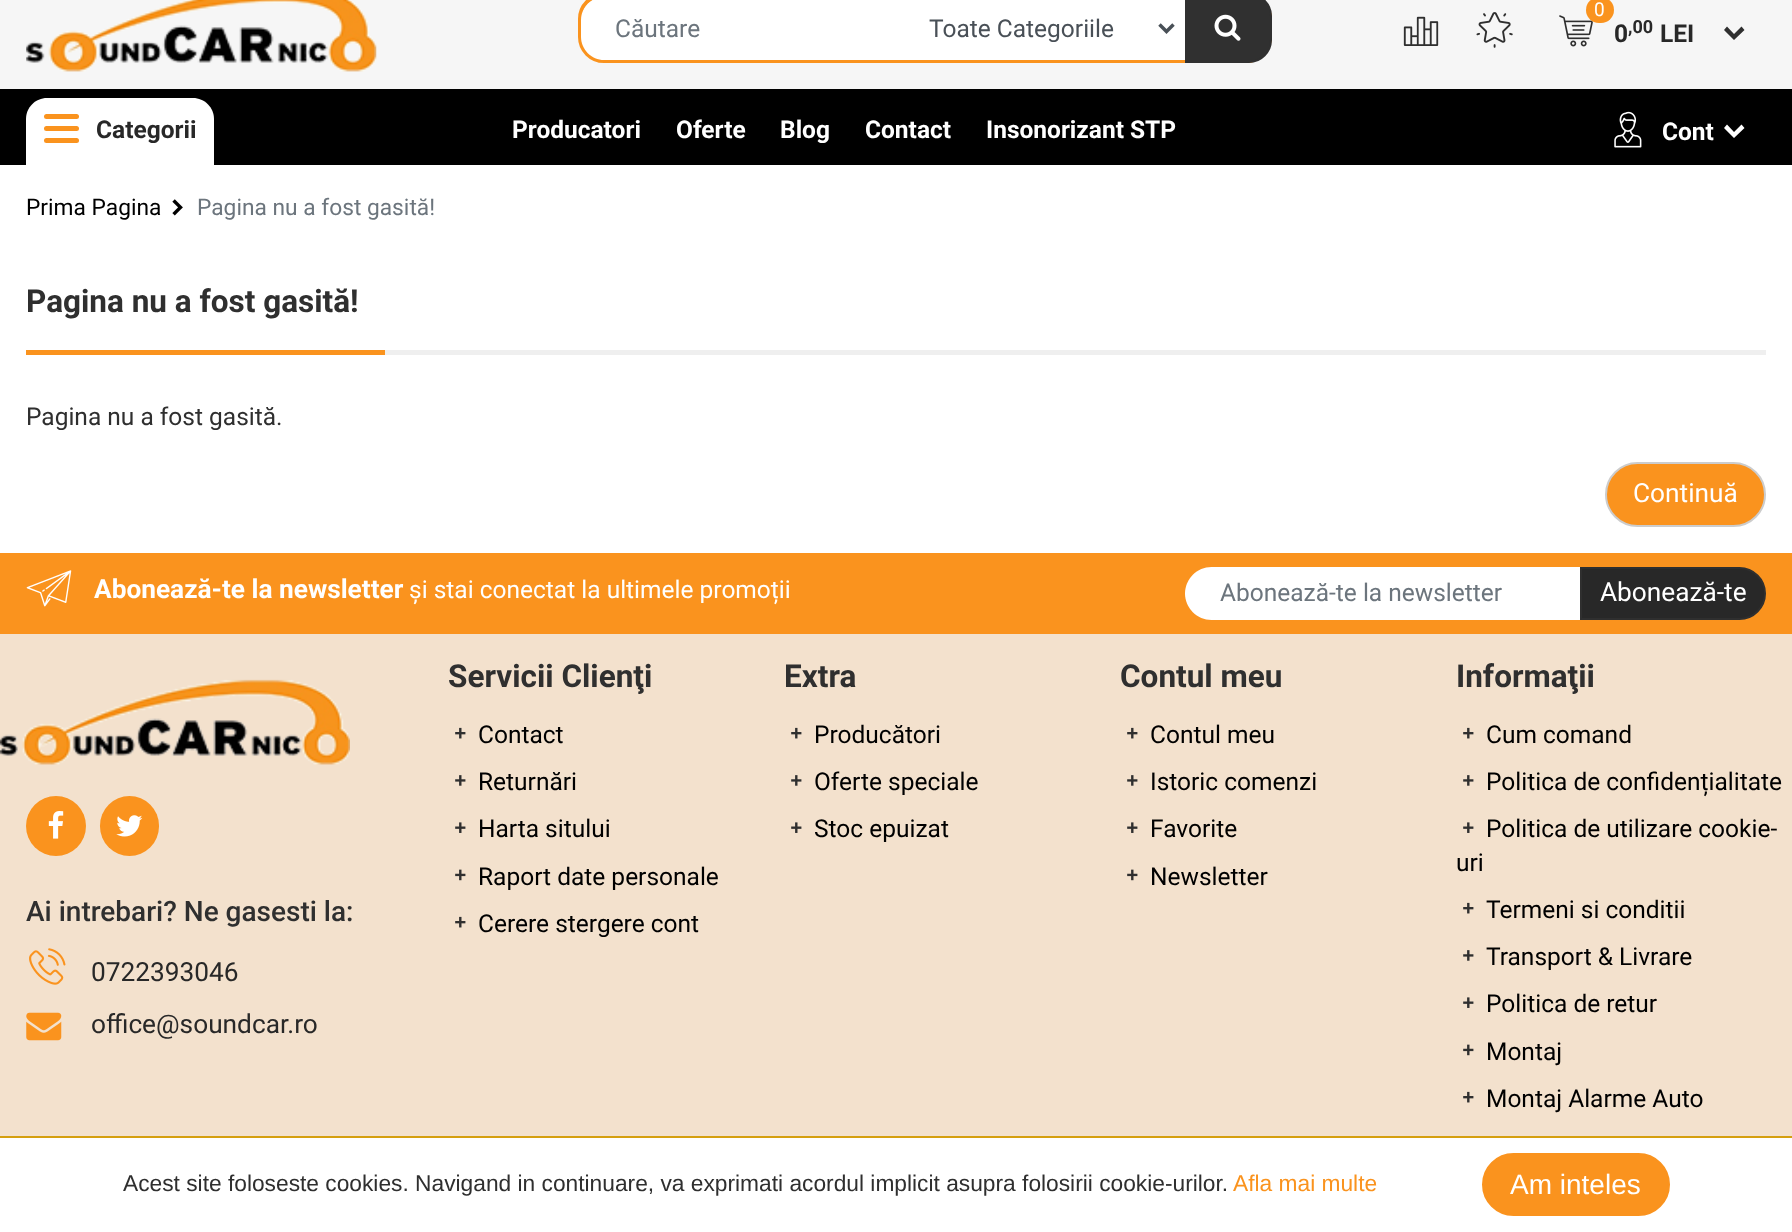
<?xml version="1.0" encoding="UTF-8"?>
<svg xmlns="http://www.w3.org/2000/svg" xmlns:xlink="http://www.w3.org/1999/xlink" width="1792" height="1232">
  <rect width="100%" height="100%" fill="#f6f6f6" />
  <image x="26" y="0" width="351" height="72" xlink:href="image1.png" />
  <rect x="580" y="-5" width="690" height="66" rx="24" fill="none" stroke="#fa931e" stroke-width="4" />
  <path d="M 604 -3 h 581 v 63 h -581 c -12.5 0 -23 -10.5 -23 -23 v -17 c 0 -12.5 10.5 -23 23 -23 z" fill="#ffffff" />
  <path d="M 1159.5 24.5 l 7 7 l 7 -7" fill="none" stroke="#495057" stroke-width="3.5" />
  <path d="M 1186 -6 h 63 c 12 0 22 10 22 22 v 24 c 0 12 -10 22 -22 22 h -63 z" fill="#303030" stroke="#303030" stroke-width="2" />
  <image x="1214" y="14" width="27" height="27" xlink:href="image2.png" />
  <image x="1403" y="16" width="36" height="30" xlink:href="image3.png" />
  <image x="1476" y="12" width="37" height="36" xlink:href="image4.png" />
  <image x="1559" y="15" width="34" height="32" xlink:href="image5.png" />
  <rect x="1586" y="-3" width="28" height="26" rx="13" fill="#fa931e" />
  <path d="M 1734 40 l -10 -10 l 3 -3.5 l 7 7.5 l 7.5 -7.5 l 3 3.5 z" fill="#2f2f2f" />
  <rect y="89" width="1792" height="76" fill="#000000" />
  <path d="M 47 98 h 146 c 11.5 0 21 9.5 21 21 v 46 h -188 v -46 c 0 -11.5 9.5 -21 21 -21 z" fill="#ffffff" />
  <rect x="44" y="114" width="35" height="5" rx="2.5" fill="#fa931e" />
  <rect x="44" y="126" width="35" height="5" rx="2.5" fill="#fa931e" />
  <rect x="44" y="138" width="35" height="5" rx="2.5" fill="#fa931e" />
  <image x="1614" y="111" width="28" height="37" xlink:href="image6.png" />
  <path d="M 1734 138 l -10 -10 l 3 -3.5 l 7 7.5 l 7.5 -7.5 l 3 3.5 z" fill="#ffffff" />
  <rect y="165" width="1792" height="388" fill="#ffffff" />
  <image x="172" y="199" width="11" height="17" xlink:href="image7.png" />
  <rect x="385" y="350" width="1381" height="5" fill="#efefef" />
  <rect x="26" y="350" width="359" height="5" fill="#fa931e" />
  <rect x="1606" y="463" width="159" height="63" rx="31.5" fill="#fa931e" stroke="#cccccc" stroke-width="2" />
  <rect y="1138" width="1792" height="94" fill="#ffffff" />
  <rect y="1136" width="1792" height="2" fill="#d59f0f" />
  <rect x="1483" y="1154" width="186" height="61" rx="30.5" fill="#fa931e" stroke="#fa931e" stroke-width="2" />
  <rect y="553" width="1792" height="81" fill="#fa931e" />
  <image x="26" y="570" width="46" height="37" xlink:href="image8.png" />
  <path d="M 1211.5 567 h 368.5 v 53 h -368.5 c -14.5 0 -26.5 -12 -26.5 -26.5 c 0 -14.5 12 -26.5 26.5 -26.5 z" fill="#ffffff" />
  <path d="M 1581 568 h 158.5 c 14 0 25.5 11.5 25.5 25.5 c 0 14 -11.5 25.5 -25.5 25.5 h -158.5 z" fill="#282828" stroke="#2f2f2f" stroke-width="2" />
  <rect y="634" width="1792" height="502" fill="#f3e1cd" />
  <image x="0" y="679" width="350" height="86" xlink:href="image9.png" />
  <circle cx="56" cy="826" r="30" fill="#fa931e" />
  <image x="48" y="811" width="16" height="28" xlink:href="image10.png" />
  <rect x="100" y="796" width="59" height="60" rx="29.5" fill="#fa931e" />
  <image x="116" y="815" width="27" height="22" xlink:href="image11.png" />
  <image x="29" y="948" width="37" height="37" xlink:href="image12.png" />
  <image x="26" y="1012" width="36" height="29" xlink:href="image13.png" />
  <image x="455" y="727" width="11" height="12" xlink:href="image14.png" />
  <image x="455" y="775" width="11" height="11" xlink:href="image15.png" />
  <image x="455" y="822" width="11" height="11" xlink:href="image16.png" />
  <image x="455" y="869" width="11" height="12" xlink:href="image17.png" />
  <image x="455" y="916" width="11" height="12" xlink:href="image14.png" />
  <image x="791" y="727" width="11" height="12" xlink:href="image14.png" />
  <image x="791" y="775" width="11" height="11" xlink:href="image15.png" />
  <image x="791" y="822" width="11" height="11" xlink:href="image16.png" />
  <image x="1127" y="727" width="11" height="12" xlink:href="image14.png" />
  <image x="1127" y="775" width="11" height="11" xlink:href="image15.png" />
  <image x="1127" y="822" width="11" height="11" xlink:href="image16.png" />
  <image x="1127" y="869" width="11" height="12" xlink:href="image17.png" />
  <image x="1463" y="727" width="11" height="12" xlink:href="image14.png" />
  <image x="1463" y="775" width="11" height="11" xlink:href="image15.png" />
  <image x="1463" y="822" width="11" height="11" xlink:href="image16.png" />
  <image x="1463" y="902" width="11" height="12" xlink:href="image14.png" />
  <image x="1463" y="950" width="11" height="11" xlink:href="image15.png" />
  <image x="1463" y="997" width="11" height="11" xlink:href="image16.png" />
  <image x="1463" y="1044" width="11" height="12" xlink:href="image17.png" />
  <image x="1463" y="1091" width="11" height="12" xlink:href="image14.png" />
  <text x="615" y="37" style="font-family: Roboto; font-size: 24.5px; fill: #6c757d">Căutare</text>
  <text x="929" y="37" style="font-family: Roboto; font-size: 24.5px; fill: #495057">Toate Categoriile</text>
  <text x="1594" y="16" style="font-family: Roboto; font-size: 19px; fill: #ffffff">0</text>
  <text x="1614" y="42" style="font-family: Roboto; font-size: 24.5px; font-weight: bold; fill: #282828">0</text>
  <text x="1628" y="33" style="font-family: Roboto; font-size: 18px; font-weight: bold; fill: #282828">,00</text>
  <text x="1660" y="42" style="font-family: Roboto; font-size: 24.5px; font-weight: bold; fill: #282828">LEI</text>
  <text x="96" y="138" style="font-family: Roboto; font-size: 24.5px; font-weight: bold; fill: #282828">Categorii</text>
  <text x="512" y="138" style="font-family: Roboto; font-size: 24.5px; font-weight: bold; fill: #ffffff">Producatori</text>
  <text x="676" y="138" style="font-family: Roboto; font-size: 24.5px; font-weight: bold; fill: #ffffff">Oferte</text>
  <text x="780" y="138" style="font-family: Roboto; font-size: 24.5px; font-weight: bold; fill: #ffffff">Blog</text>
  <text x="865" y="138" style="font-family: Roboto; font-size: 24.5px; font-weight: bold; fill: #ffffff">Contact</text>
  <text x="986" y="138" style="font-family: Roboto; font-size: 24.5px; font-weight: bold; fill: #ffffff">Insonorizant STP</text>
  <text x="1662" y="140" style="font-family: Roboto; font-size: 24.5px; font-weight: bold; fill: #ffffff">Cont</text>
  <text x="26" y="215" style="font-family: Roboto; font-size: 22.75px; fill: #000000">Prima Pagina</text>
  <text x="197" y="215" style="font-family: Roboto; font-size: 22.75px; fill: #6c757d">Pagina nu a fost gasită!</text>
  <text x="26" y="312" style="font-family: Roboto; font-size: 31.5px; font-weight: bold; fill: #2f2f2f">Pagina nu a fost gasită!</text>
  <text x="26" y="425" style="font-family: Roboto; font-size: 24.5px; fill: #2f2f2f">Pagina nu a fost gasită.</text>
  <text x="1633" y="502" style="font-family: Roboto; font-size: 26.25px; fill: #ffffff">Continuă</text>
  <text x="123" y="1191" style="font-family: Liberation Sans; font-size: 22.75px; fill: #2f2f2f">Acest site foloseste cookies. Navigand in continuare, va exprimati acordul implicit asupra folosirii cookie-urilor.</text>
  <text x="1233" y="1191" style="font-family: Liberation Sans; font-size: 22.75px; fill: #fa931e">Afla mai multe</text>
  <text x="1510" y="1194" style="font-family: Liberation Sans; font-size: 28px; fill: #ffffff">Am inteles</text>
  <text x="94" y="598" style="font-family: Roboto; font-size: 26.25px; font-weight: bold; fill: #ffffff">Abonează-te la newsletter</text>
  <text x="409" y="598" style="font-family: Roboto; font-size: 24.5px; fill: #ffffff">și stai conectat la ultimele promoții</text>
  <text x="1220" y="601" style="font-family: Roboto; font-size: 24.5px; fill: #6c757d">Abonează-te la newsletter</text>
  <text x="1600" y="601" style="font-family: Roboto; font-size: 26.25px; fill: #ffffff">Abonează-te</text>
  <text x="26" y="921" style="font-family: Roboto; font-size: 28px; font-weight: 500; fill: #2f2f2f">Ai intrebari? Ne gasesti la:</text>
  <text x="91" y="981" style="font-family: Roboto; font-size: 26.25px; fill: #282828">0722393046</text>
  <text x="91" y="1033" style="font-family: Roboto; font-size: 26.25px; fill: #282828">office@soundcar.ro</text>
  <text x="448" y="687" style="font-family: Roboto; font-size: 31.5px; font-weight: bold; fill: #2f2f2f">Servicii Clienţi</text>
  <text x="478" y="743" style="font-family: Roboto; font-size: 24.5px; fill: #000000">Contact</text>
  <text x="478" y="790" style="font-family: Roboto; font-size: 24.5px; fill: #000000">Returnări</text>
  <text x="478" y="837" style="font-family: Roboto; font-size: 24.5px; fill: #000000">Harta sitului</text>
  <text x="478" y="885" style="font-family: Roboto; font-size: 24.5px; fill: #000000">Raport date personale</text>
  <text x="478" y="932" style="font-family: Roboto; font-size: 24.5px; fill: #000000">Cerere stergere cont</text>
  <text x="784" y="687" style="font-family: Roboto; font-size: 31.5px; font-weight: bold; fill: #2f2f2f">Extra</text>
  <text x="814" y="743" style="font-family: Roboto; font-size: 24.5px; fill: #000000">Producători</text>
  <text x="814" y="790" style="font-family: Roboto; font-size: 24.5px; fill: #000000">Oferte speciale</text>
  <text x="814" y="837" style="font-family: Roboto; font-size: 24.5px; fill: #000000">Stoc epuizat</text>
  <text x="1120" y="687" style="font-family: Roboto; font-size: 31.5px; font-weight: bold; fill: #2f2f2f">Contul meu</text>
  <text x="1150" y="743" style="font-family: Roboto; font-size: 24.5px; fill: #000000">Contul meu</text>
  <text x="1150" y="790" style="font-family: Roboto; font-size: 24.5px; fill: #000000">Istoric comenzi</text>
  <text x="1150" y="837" style="font-family: Roboto; font-size: 24.5px; fill: #000000">Favorite</text>
  <text x="1150" y="885" style="font-family: Roboto; font-size: 24.5px; fill: #000000">Newsletter</text>
  <text x="1456" y="687" style="font-family: Roboto; font-size: 31.5px; font-weight: bold; fill: #2f2f2f">Informaţii</text>
  <text x="1486" y="743" style="font-family: Roboto; font-size: 24.5px; fill: #000000">Cum comand</text>
  <text x="1486" y="790" style="font-family: Roboto; font-size: 24.5px; fill: #000000">Politica de confidențialitate</text>
  <text x="1486" y="837" style="font-family: Roboto; font-size: 24.5px; fill: #000000">Politica de utilizare cookie-</text>
  <text x="1456" y="871" style="font-family: Roboto; font-size: 24.5px; fill: #000000">uri</text>
  <text x="1486" y="918" style="font-family: Roboto; font-size: 24.5px; fill: #000000">Termeni si conditii</text>
  <text x="1486" y="965" style="font-family: Roboto; font-size: 24.5px; fill: #000000">Transport &amp; Livrare</text>
  <text x="1486" y="1012" style="font-family: Roboto; font-size: 24.5px; fill: #000000">Politica de retur</text>
  <text x="1486" y="1060" style="font-family: Roboto; font-size: 24.5px; fill: #000000">Montaj</text>
  <text x="1486" y="1107" style="font-family: Roboto; font-size: 24.5px; fill: #000000">Montaj Alarme Auto</text>
</svg>
